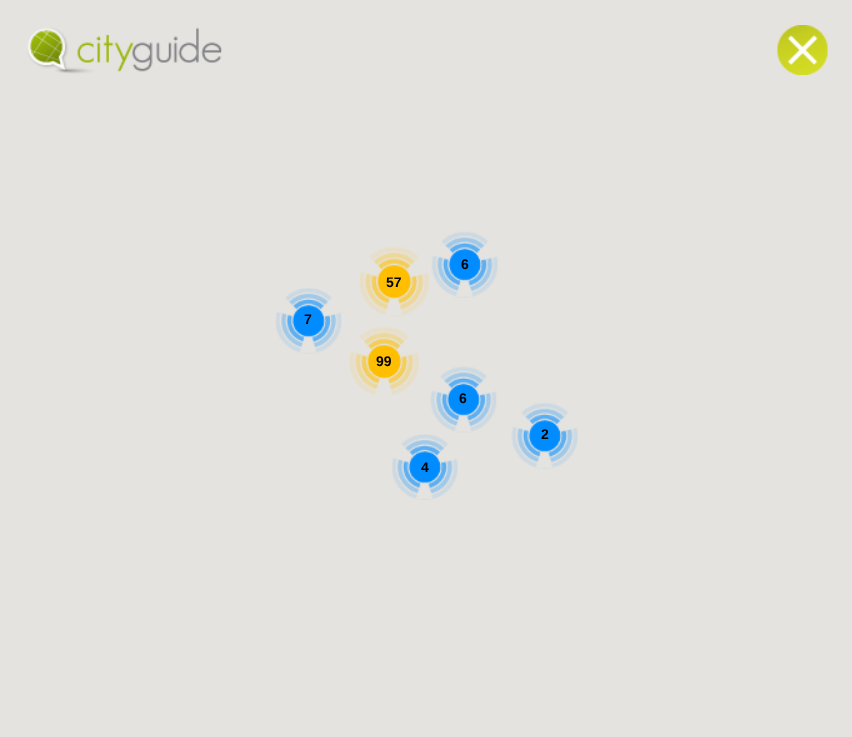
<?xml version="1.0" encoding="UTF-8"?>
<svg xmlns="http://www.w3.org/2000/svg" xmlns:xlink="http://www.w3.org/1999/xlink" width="852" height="737">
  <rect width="100%" height="100%" fill="#e5e3df" />
  <image x="27" y="27" width="195" height="47" xlink:href="image1.png" />
  <image x="777" y="25" width="51" height="50" xlink:href="image2.png" />
  <image x="431" y="231" width="67" height="67" xlink:href="image3.png" />
  <image x="359" y="246" width="70" height="71" xlink:href="image4.png" />
  <image x="275" y="287" width="67" height="67" xlink:href="image5.png" />
  <image x="349" y="326" width="70" height="70" xlink:href="image6.png" />
  <image x="430" y="366" width="67" height="67" xlink:href="image7.png" />
  <image x="511" y="402" width="67" height="67" xlink:href="image8.png" />
  <image x="392" y="434" width="66" height="66" xlink:href="image9.png" />
  <text x="461" y="269" style="font-family: Liberation Sans; font-size: 14px; font-weight: bold; fill: #000000">6</text>
  <text x="386" y="287" style="font-family: Liberation Sans; font-size: 14px; font-weight: bold; fill: #000000">57</text>
  <text x="304" y="324" style="font-family: Liberation Sans; font-size: 14px; font-weight: bold; fill: #000000">7</text>
  <text x="376" y="366" style="font-family: Liberation Sans; font-size: 14px; font-weight: bold; fill: #000000">99</text>
  <text x="459" y="403" style="font-family: Liberation Sans; font-size: 14px; font-weight: bold; fill: #000000">6</text>
  <text x="541" y="439" style="font-family: Liberation Sans; font-size: 14px; font-weight: bold; fill: #000000">2</text>
  <text x="421" y="472" style="font-family: Liberation Sans; font-size: 14px; font-weight: bold; fill: #000000">4</text>
</svg>
